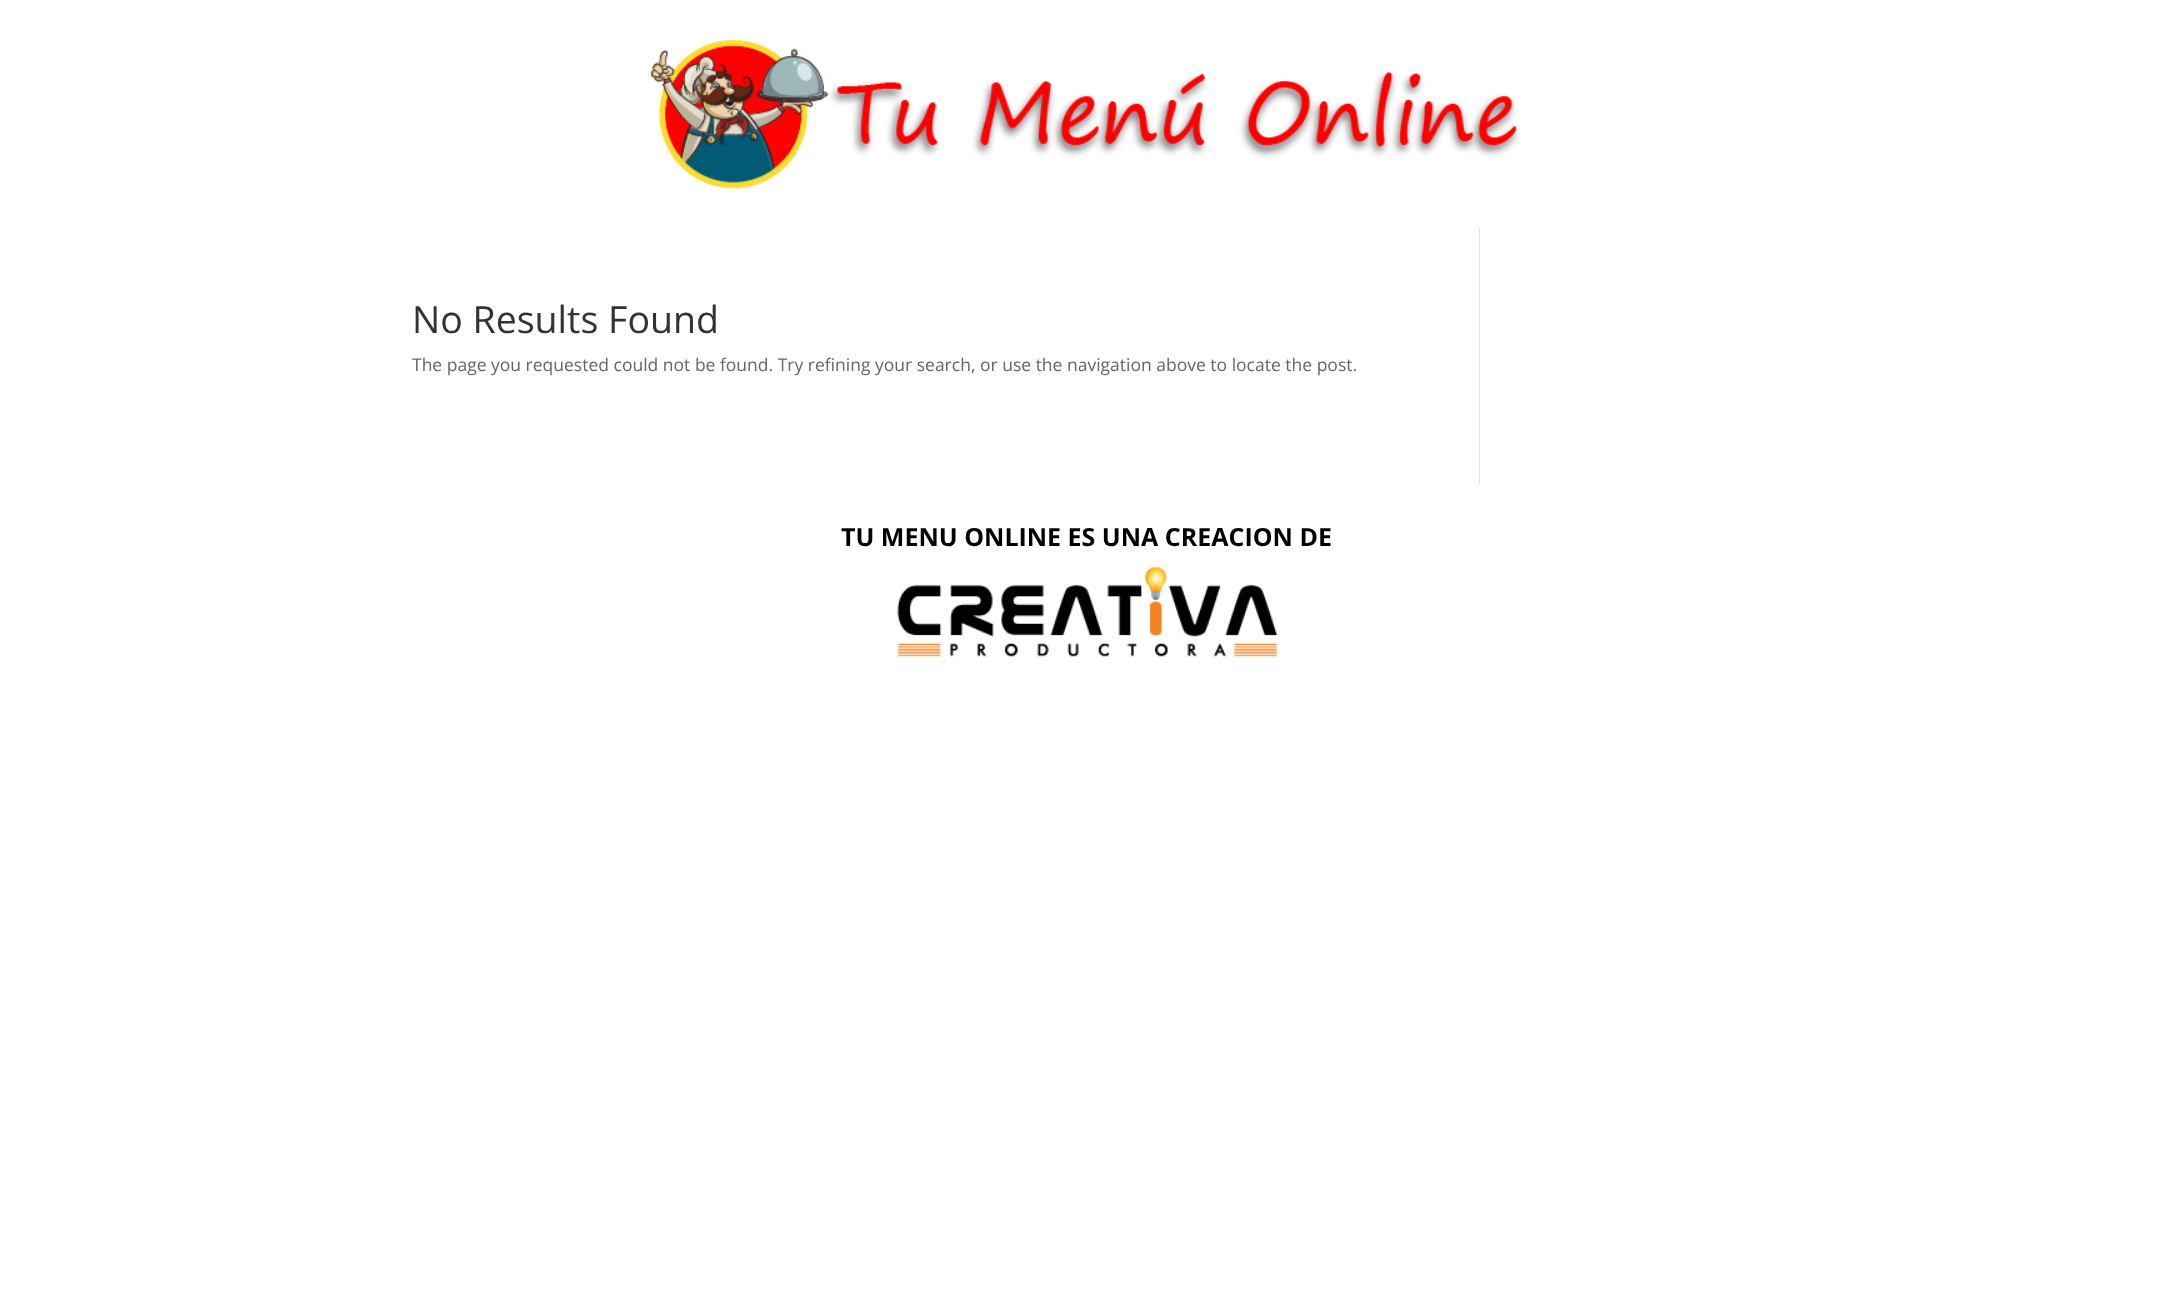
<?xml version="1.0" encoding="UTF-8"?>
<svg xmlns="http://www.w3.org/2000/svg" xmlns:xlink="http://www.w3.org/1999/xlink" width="2173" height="1295">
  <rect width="100%" height="100%" fill="#ffffff" />
  <image x="650" y="39" width="869" height="150" xlink:href="image1.png" />
  <rect x="1479" y="228" width="1" height="256" fill="#e2e2e2" />
  <image x="897" y="566" width="381" height="91" xlink:href="image2.png" />
  <text x="412" y="333" style="font-family: Open Sans; font-size: 37.5px; fill: #333333">No Results Found</text>
  <text x="412" y="371" style="font-family: Open Sans; font-size: 17.5px; fill: #666666">The page you requested could not be found. Try refining your search, or use the navigation above to locate the post.</text>
  <text x="841" y="546" style="font-family: Open Sans; font-size: 25px; font-weight: bold; fill: #000000">TU MENU ONLINE ES UNA CREACION DE</text>
</svg>
